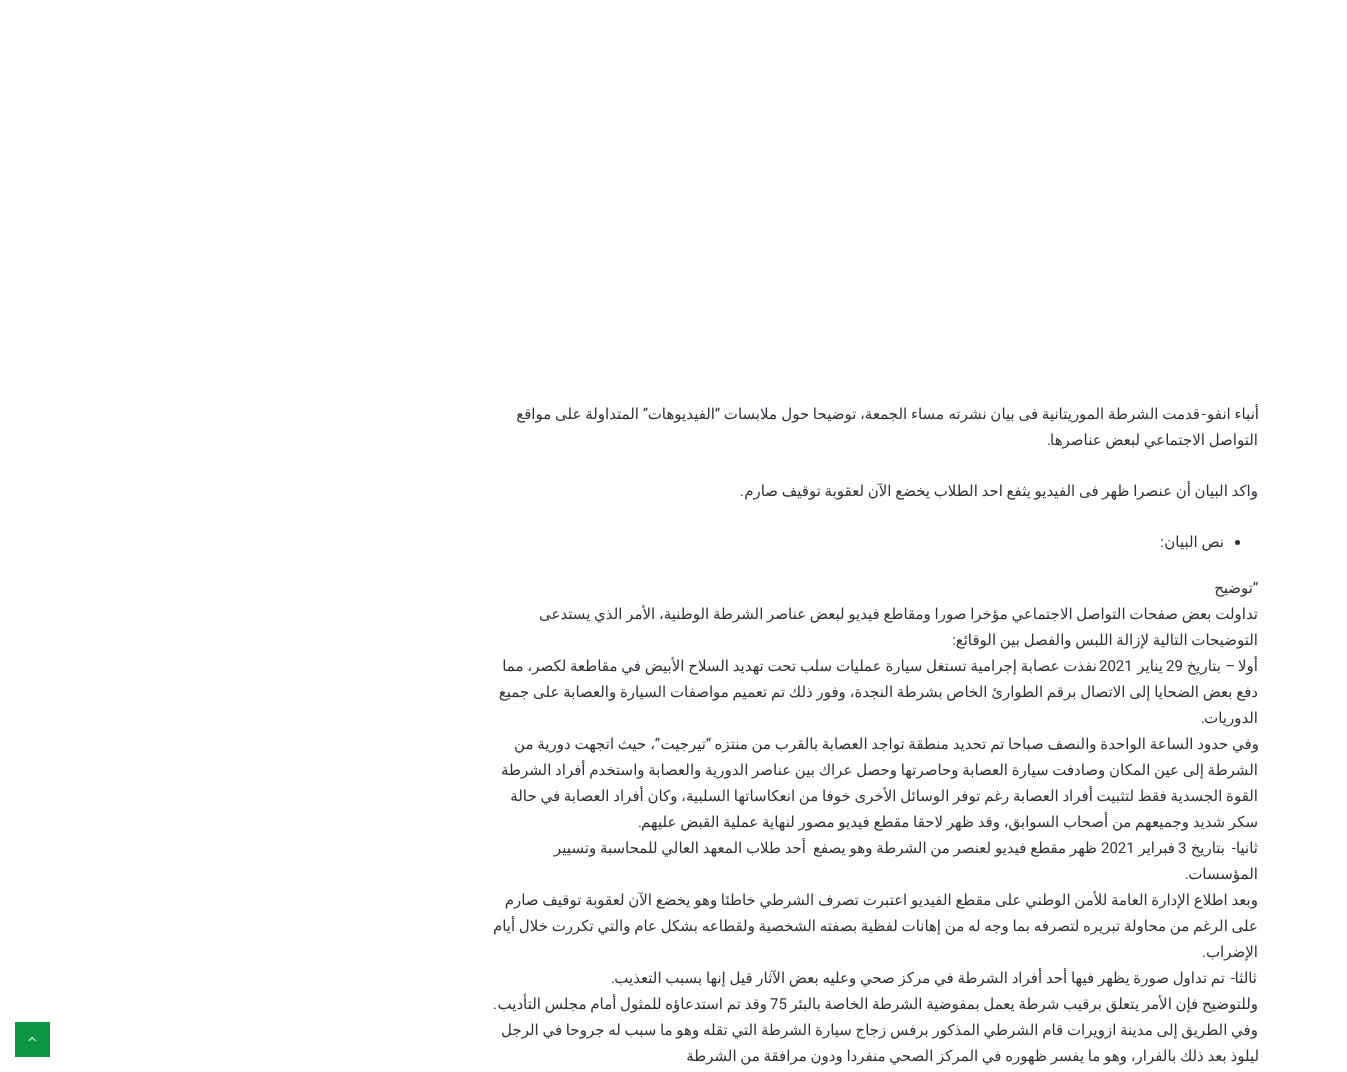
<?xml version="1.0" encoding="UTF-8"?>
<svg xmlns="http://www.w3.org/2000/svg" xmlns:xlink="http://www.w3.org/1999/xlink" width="1347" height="1072">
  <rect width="100%" height="100%" fill="#ffffff" />
  <circle cx="1237.5" cy="542.5" r="2.5" fill="#2e3136" />
  <rect x="15" y="1022" width="35" height="35" fill="#0c9643" />
  <image x="28" y="1036" width="8" height="6" xlink:href="image1.png" />
  <text x="1206" y="419" style="font-family: Roboto; font-size: 15px; direction: rtl; fill: #2e3136">-</text>
  <text x="1259" y="419" word-spacing="-1" style="font-family: DejaVu Sans; font-size: 15px; direction: rtl; fill: #2e3136">أنباء انفو</text>
  <text x="1200" y="419" word-spacing="-1" style="font-family: DejaVu Sans; font-size: 15px; direction: rtl; fill: #2e3136">قدمت الشرطة الموريتانية فى بيان نشرته</text>
  <text x="944" y="419" word-spacing="-1.05" style="font-family: DejaVu Sans; font-size: 15px; direction: rtl; fill: #2e3136">مساء الجمعة، توضيحا حول</text>
  <text x="777" y="419" style="font-family: DejaVu Sans; font-size: 15px; direction: rtl; fill: #2e3136">ملابسات</text>
  <text x="720" y="419" style="font-family: Roboto; font-size: 15px; direction: rtl; fill: #2e3136">“</text>
  <text x="715" y="419" style="font-family: DejaVu Sans; font-size: 15px; direction: rtl; fill: #2e3136">الفيديوهات</text>
  <text x="648" y="419" style="font-family: Roboto; font-size: 15px; direction: rtl; fill: #2e3136">”</text>
  <text x="639" y="419" word-spacing="-1.05" style="font-family: DejaVu Sans; font-size: 15px; direction: rtl; fill: #2e3136">المتداولة على مواقع</text>
  <text x="1258" y="445" word-spacing="-1.05" style="font-family: DejaVu Sans; font-size: 15px; direction: rtl; fill: #2e3136">التواصل الاجتماعي لبعض عناصرها</text>
  <text x="1051" y="445" style="font-family: Roboto; font-size: 15px; direction: rtl; fill: #2e3136">.</text>
  <text x="1258" y="496" word-spacing="-1.05" style="font-family: DejaVu Sans; font-size: 15px; direction: rtl; fill: #2e3136">واكد البيان</text>
  <text x="1191" y="496" word-spacing="-1.05" style="font-family: DejaVu Sans; font-size: 15px; direction: rtl; fill: #2e3136">أن عنصرا ظهر فى الفيديو يثفع احد الطلاب يخضع الآن لعقوبة توقيف صارم</text>
  <text x="744" y="496" style="font-family: Roboto; font-size: 15px; direction: rtl; fill: #2e3136">.</text>
  <text x="1224" y="547" word-spacing="-1.05" style="font-family: DejaVu Sans; font-size: 15px; direction: rtl; fill: #2e3136">نص البيان</text>
  <text x="1164" y="547" style="font-family: Roboto; font-size: 15px; direction: rtl; fill: #2e3136">:</text>
  <text x="1258" y="593" style="font-family: Roboto; font-size: 15px; direction: rtl; fill: #2e3136">“</text>
  <text x="1253" y="593" style="font-family: DejaVu Sans; font-size: 15px; direction: rtl; fill: #2e3136">توضيح</text>
  <text x="1258" y="619" word-spacing="-1.05" style="font-family: DejaVu Sans; font-size: 15px; direction: rtl; fill: #2e3136">تداولت بعض صفحات التواصل الاجتماعي مؤخرا صورا ومقاطع فيديو لبعض عناصر الشرطة الوطنية، الأمر الذي يستدعى</text>
  <text x="1258" y="645" word-spacing="-1.05" style="font-family: DejaVu Sans; font-size: 15px; direction: rtl; fill: #2e3136">التوضيحات التالية لإزالة اللبس والفصل بين الوقائع</text>
  <text x="956" y="645" style="font-family: Roboto; font-size: 15px; direction: rtl; fill: #2e3136">:</text>
  <text x="1258" y="671" style="font-family: DejaVu Sans; font-size: 15px; direction: rtl; fill: #2e3136">أولا</text>
  <text x="1235" y="671" style="font-family: Roboto; font-size: 15px; direction: rtl; fill: #2e3136">–</text>
  <text x="1221" y="671" style="font-family: DejaVu Sans; font-size: 15px; direction: rtl; fill: #2e3136">بتاريخ</text>
  <text x="1166" y="671" style="font-family: Roboto; font-size: 15px; fill: #2e3136">29</text>
  <text x="1163" y="671" style="font-family: DejaVu Sans; font-size: 15px; direction: rtl; fill: #2e3136">يناير</text>
  <text x="1099" y="671" style="font-family: Roboto; font-size: 15px; fill: #2e3136">2021</text>
  <text x="1097" y="671" word-spacing="-1" style="font-family: DejaVu Sans; font-size: 15px; direction: rtl; fill: #2e3136">نفذت عصابة إجرامية تستغل سيارة عمليات سلب تحت تهديد السلاح الأبيض في مقاطعة لكصر، مما</text>
  <text x="1258" y="697" word-spacing="-1.05" style="font-family: DejaVu Sans; font-size: 15px; direction: rtl; fill: #2e3136">دفع بعض الضحايا إلى الاتصال برقم الطوارئ الخاص بشرطة النجدة، وفور ذلك تم تعميم مواصفات السيارة والعصابة على جميع</text>
  <text x="1258" y="723" style="font-family: DejaVu Sans; font-size: 15px; direction: rtl; fill: #2e3136">الدوريات</text>
  <text x="1205" y="723" style="font-family: Roboto; font-size: 15px; direction: rtl; fill: #2e3136">.</text>
  <text x="1259" y="749" word-spacing="-1" style="font-family: DejaVu Sans; font-size: 15px; direction: rtl; fill: #2e3136">وفي حدود الساعة الواحدة والنصف صباحا تم تحديد منطقة تواجد العصابة بالقرب من منتزه</text>
  <text x="711" y="749" style="font-family: Roboto; font-size: 15px; direction: rtl; fill: #2e3136">“</text>
  <text x="706" y="749" style="font-family: DejaVu Sans; font-size: 15px; direction: rtl; fill: #2e3136">تيرجيت</text>
  <text x="660" y="749" style="font-family: Roboto; font-size: 15px; direction: rtl; fill: #2e3136">”</text>
  <text x="655" y="749" word-spacing="-1" style="font-family: DejaVu Sans; font-size: 15px; direction: rtl; fill: #2e3136">، حيث اتجهت دورية من</text>
  <text x="1258" y="775" word-spacing="-1.05" style="font-family: DejaVu Sans; font-size: 15px; direction: rtl; fill: #2e3136">الشرطة إلى عين المكان وصادفت سيارة العصابة وحاصرتها وحصل عراك بين عناصر الدورية والعصابة واستخدم أفراد الشرطة</text>
  <text x="1258" y="801" word-spacing="-1.05" style="font-family: DejaVu Sans; font-size: 15px; direction: rtl; fill: #2e3136">القوة الجسدية فقط لتثبيت أفراد العصابة رغم توفر الوسائل الأخرى خوفا من انعكاساتها السلبية، وكان أفراد العصابة في حالة</text>
  <text x="1258" y="827" word-spacing="-1.05" style="font-family: DejaVu Sans; font-size: 15px; direction: rtl; fill: #2e3136">سكر شديد وجميعهم من أصحاب السوابق، وقد ظهر لاحقا مقطع فيديو مصور لنهاية عملية القبض عليهم</text>
  <text x="642" y="827" style="font-family: Roboto; font-size: 15px; direction: rtl; fill: #2e3136">.</text>
  <text x="1258" y="853" style="font-family: DejaVu Sans; font-size: 15px; direction: rtl; fill: #2e3136">ثانيا</text>
  <text x="1236" y="853" style="font-family: Roboto; font-size: 15px; direction: rtl; fill: #2e3136">-</text>
  <text x="1225" y="853" style="font-family: DejaVu Sans; font-size: 15px; direction: rtl; fill: #2e3136">بتاريخ</text>
  <text x="1178" y="853" style="font-family: Roboto; font-size: 15px; fill: #2e3136">3</text>
  <text x="1175" y="853" style="font-family: DejaVu Sans; font-size: 15px; direction: rtl; fill: #2e3136">فبراير</text>
  <text x="1101" y="853" style="font-family: Roboto; font-size: 15px; fill: #2e3136">2021</text>
  <text x="1097" y="853" word-spacing="-1" style="font-family: DejaVu Sans; font-size: 15px; direction: rtl; fill: #2e3136">ظهر مقطع فيديو لعنصر من الشرطة وهو يصفع</text>
  <text x="806" y="853" word-spacing="-1" style="font-family: DejaVu Sans; font-size: 15px; direction: rtl; fill: #2e3136">أحد طلاب المعهد العالي للمحاسبة وتسيير</text>
  <text x="1258" y="879" style="font-family: DejaVu Sans; font-size: 15px; direction: rtl; fill: #2e3136">المؤسسات</text>
  <text x="1189" y="879" style="font-family: Roboto; font-size: 15px; direction: rtl; fill: #2e3136">.</text>
  <text x="1258" y="905" word-spacing="-1.05" style="font-family: DejaVu Sans; font-size: 15px; direction: rtl; fill: #2e3136">وبعد اطلاع الإدارة العامة للأمن الوطني على مقطع الفيديو اعتبرت تصرف الشرطي خاطئا وهو يخضع الآن لعقوبة توقيف صارم</text>
  <text x="1258" y="931" word-spacing="-1.05" style="font-family: DejaVu Sans; font-size: 15px; direction: rtl; fill: #2e3136">على الرغم من محاولة تبريره لتصرفه بما وجه له من إهانات لفظية بصفته الشخصية ولقطاعه بشكل عام والتي تكررت خلال أيام</text>
  <text x="1258" y="957" style="font-family: DejaVu Sans; font-size: 15px; direction: rtl; fill: #2e3136">الإضراب</text>
  <text x="1206" y="957" style="font-family: Roboto; font-size: 15px; direction: rtl; fill: #2e3136">.</text>
  <text x="1257" y="983" style="font-family: DejaVu Sans; font-size: 15px; direction: rtl; fill: #2e3136">ثالثا</text>
  <text x="1235" y="983" style="font-family: Roboto; font-size: 15px; direction: rtl; fill: #2e3136">-</text>
  <text x="1225" y="983" word-spacing="-1" style="font-family: DejaVu Sans; font-size: 15px; direction: rtl; fill: #2e3136">تم تداول صورة يظهر فيها أحد أفراد الشرطة في مركز صحي وعليه بعض الآثار قيل إنها بسبب التعذيب</text>
  <text x="615" y="983" style="font-family: Roboto; font-size: 15px; direction: rtl; fill: #2e3136">.</text>
  <text x="1258" y="1009" word-spacing="-1.05" style="font-family: DejaVu Sans; font-size: 15px; direction: rtl; fill: #2e3136">وللتوضيح فإن الأمر يتعلق برقيب شرطة يعمل بمفوضية الشرطة الخاصة بالبئر</text>
  <text x="770" y="1009" style="font-family: Roboto; font-size: 15px; fill: #2e3136">75</text>
  <text x="767" y="1009" word-spacing="-1" style="font-family: DejaVu Sans; font-size: 15px; direction: rtl; fill: #2e3136">وقد تم استدعاؤه للمثول أمام مجلس التأديب</text>
  <text x="497" y="1009" style="font-family: Roboto; font-size: 15px; direction: rtl; fill: #2e3136">.</text>
  <text x="1258" y="1035" word-spacing="-1.05" style="font-family: DejaVu Sans; font-size: 15px; direction: rtl; fill: #2e3136">وفي الطريق إلى مدينة ازويرات قام الشرطي المذكور برفس زجاج سيارة الشرطة التي تقله وهو ما سبب له جروحا في الرجل</text>
  <text x="1259" y="1061" word-spacing="-1.05" style="font-family: DejaVu Sans; font-size: 15px; direction: rtl; fill: #2e3136">ليلوذ بعد ذلك بالفرار، وهو ما يفسر ظهوره في المركز الصحي منفردا ودون مرافقة من الشرطة</text>
</svg>
